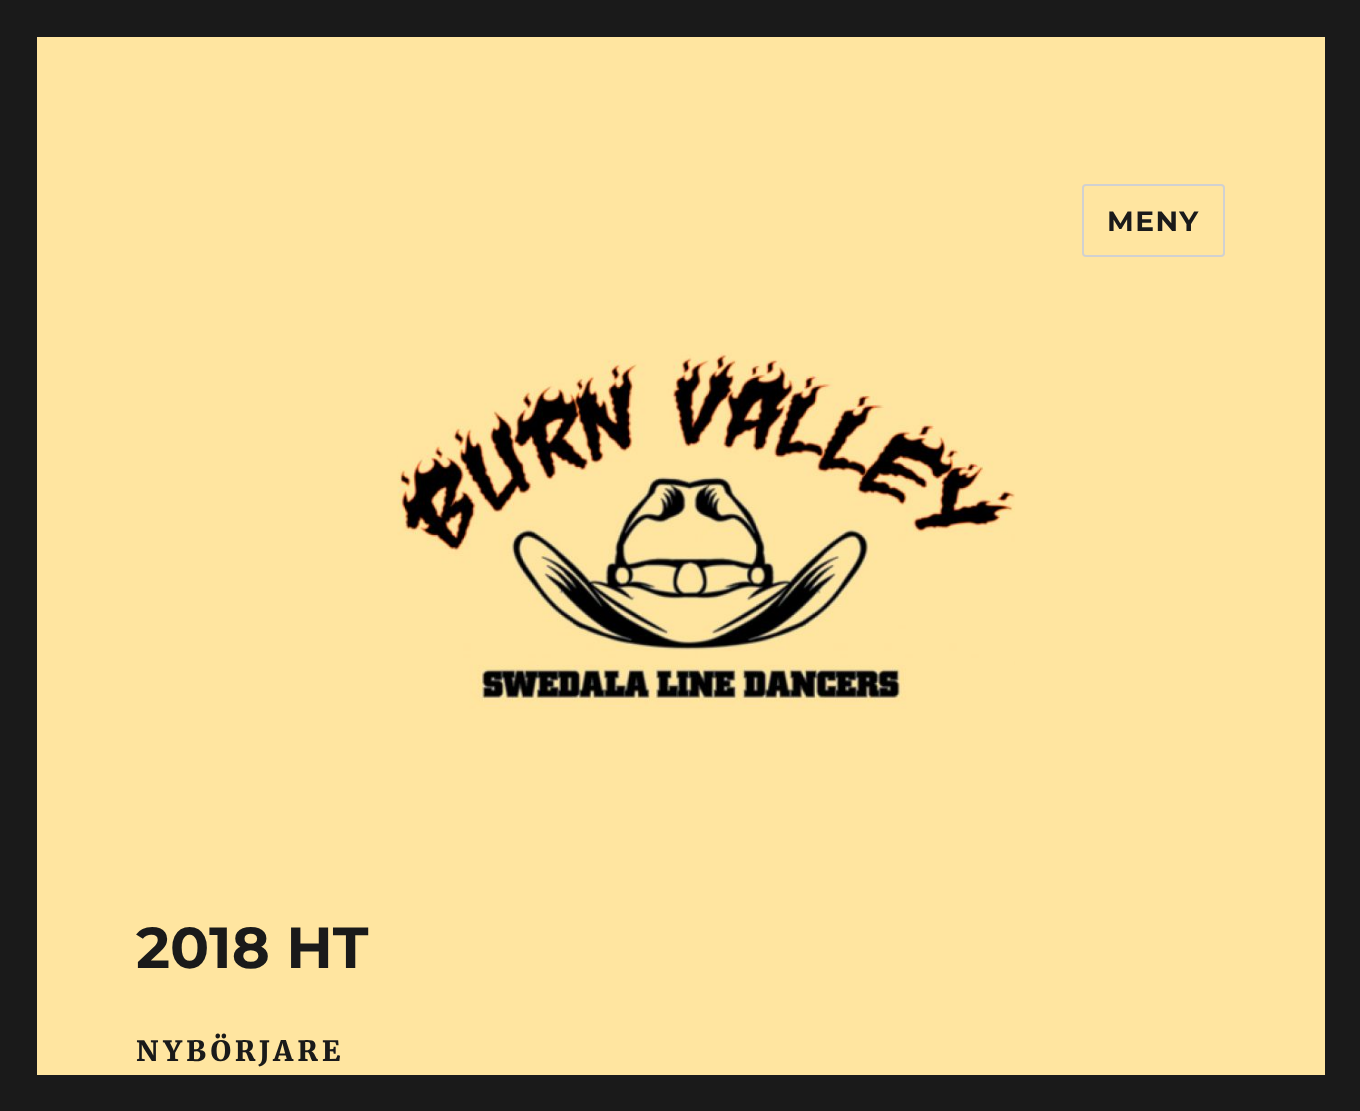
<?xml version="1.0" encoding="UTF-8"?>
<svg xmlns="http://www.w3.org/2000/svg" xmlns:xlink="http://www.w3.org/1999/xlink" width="1360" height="1111">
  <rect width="100%" height="100%" fill="#1a1a1a" />
  <rect x="37" y="37" width="1288" height="1038" fill="#ffe5a0" />
  <rect x="1083" y="185" width="141" height="71" rx="3" fill="none" stroke="#d1d1d1" stroke-width="2" />
  <image x="397" y="350" width="618" height="359" xlink:href="image1.png" />
  <text x="1107" y="231" style="font-family: Montserrat; font-size: 28px; font-weight: bold; letter-spacing: 1.5px; fill: #1a1a1a">MENY</text>
  <text x="136" y="968" style="font-family: Montserrat; font-size: 57.75px; font-weight: bold; fill: #1a1a1a">2018 HT</text>
  <text x="136" y="1061" style="font-family: Merriweather; font-size: 28px; font-weight: 900; letter-spacing: 4px; fill: #1a1a1a">NYBÖRJARE</text>
</svg>
